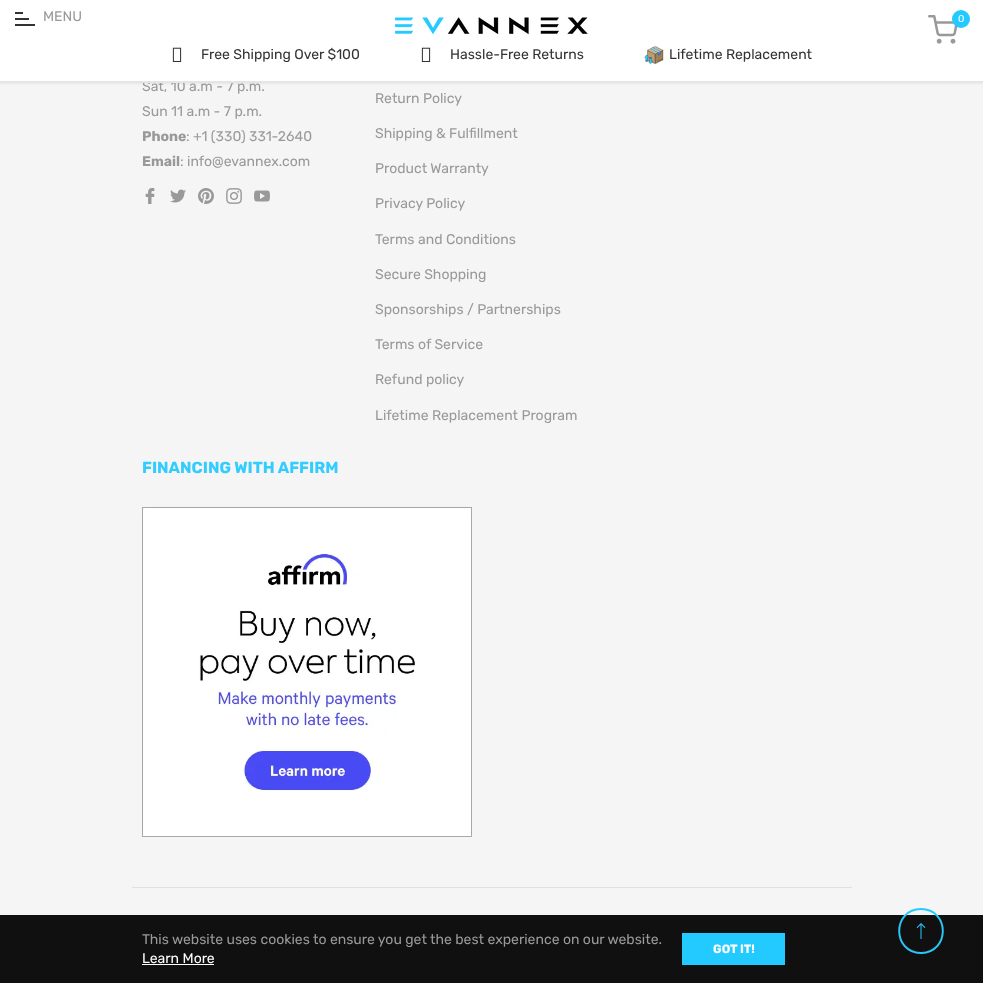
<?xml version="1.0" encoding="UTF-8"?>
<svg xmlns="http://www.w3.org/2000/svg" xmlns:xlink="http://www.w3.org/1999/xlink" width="983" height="983">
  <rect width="100%" height="100%" fill="#f5f5f5" />
  <rect width="983" height="83" fill="#000000" fill-opacity="0.1" filter="blur(1.5px)" />
  <rect width="983" height="81" fill="#ffffff" />
  <rect x="15" y="12" width="8" height="2" fill="#333333" />
  <rect x="15" y="18" width="14" height="2" fill="#333333" />
  <rect x="15" y="24" width="20" height="2" fill="#333333" />
  <image x="394" y="17" width="194" height="18" xlink:href="image1.png" />
  <image x="928" y="15" width="30" height="29" xlink:href="image2.png" />
  <circle cx="961" cy="19" r="9" fill="#23caff" />
  <image x="172" y="47" width="10" height="15" xlink:href="image3.png" />
  <image x="421" y="47" width="10" height="15" xlink:href="image3.png" />
  <image x="644" y="46" width="20" height="19" xlink:href="image4.png" />
  <image x="145" y="188" width="10" height="16" xlink:href="image5.png" />
  <image x="170" y="189" width="16" height="14" xlink:href="image6.png" />
  <image x="198" y="188" width="16" height="16" xlink:href="image7.png" />
  <image x="226" y="188" width="16" height="16" xlink:href="image8.png" />
  <image x="254" y="190" width="16" height="12" xlink:href="image9.png" />
  <image x="142" y="507" width="330" height="330" xlink:href="image10.png" />
  <rect x="132" y="887" width="720" height="1" fill="#dee2e6" />
  <rect y="915" width="983" height="68" fill="#101010" />
  <rect x="142" y="964" width="72" height="1" fill="#ffffff" />
  <rect x="682" y="933" width="103" height="32" fill="#23caff" />
  <circle cx="921" cy="931" r="22" fill="none" stroke="#ffffff" stroke-opacity="0.2" stroke-width="2" />
  <path d="M 921 909 c 29 0 29 44 0 44 c -29 0 -29 -44 0 -44" fill="none" stroke="#23caff" stroke-width="1.8" />
  <image x="916" y="923" width="10" height="16" xlink:href="image11.png" />
  <text x="43" y="21" style="font-family: Rubik; font-size: 14px; fill: #999999">MENU</text>
  <text x="958" y="22" style="font-family: Rubik; font-size: 10px; fill: #ffffff">0</text>
  <text x="201" y="59" style="font-family: Rubik; font-size: 14px; fill: #333333">Free Shipping Over $100</text>
  <text x="450" y="59" style="font-family: Rubik; font-size: 14px; fill: #333333">Hassle-Free Returns</text>
  <text x="669" y="59" style="font-family: Rubik; font-size: 14px; fill: #333333">Lifetime Replacement</text>
  <text x="142" y="91" style="font-family: Rubik; font-size: 14px; fill: #999999">Sat, 10 a.m - 7 p.m.</text>
  <rect y="81" width="983" height="2" fill="#e5e5e5" />
  <text x="142" y="116" style="font-family: Rubik; font-size: 14px; fill: #999999">Sun 11 a.m - 7 p.m.</text>
  <text x="142" y="141" style="font-family: Rubik; font-size: 14px; font-weight: bold; fill: #999999">Phone</text>
  <text x="186" y="141" style="font-family: Rubik; font-size: 14px; fill: #999999">: +1 (330) 331-2640</text>
  <text x="142" y="166" style="font-family: Rubik; font-size: 14px; font-weight: bold; fill: #999999">Email</text>
  <text x="180" y="166" style="font-family: Rubik; font-size: 14px; fill: #999999">: info@evannex.com</text>
  <text x="375" y="103" style="font-family: Rubik; font-size: 14px; fill: #999999">Return Policy</text>
  <text x="375" y="138" style="font-family: Rubik; font-size: 14px; fill: #999999">Shipping &amp; Fulfillment</text>
  <text x="375" y="173" style="font-family: Rubik; font-size: 14px; fill: #999999">Product Warranty</text>
  <text x="375" y="208" style="font-family: Rubik; font-size: 14px; fill: #999999">Privacy Policy</text>
  <text x="375" y="244" style="font-family: Rubik; font-size: 14px; fill: #999999">Terms and Conditions</text>
  <text x="375" y="279" style="font-family: Rubik; font-size: 14px; fill: #999999">Secure Shopping</text>
  <text x="375" y="314" style="font-family: Rubik; font-size: 14px; fill: #999999">Sponsorships / Partnerships</text>
  <text x="375" y="349" style="font-family: Rubik; font-size: 14px; fill: #999999">Terms of Service</text>
  <text x="375" y="384" style="font-family: Rubik; font-size: 14px; fill: #999999">Refund policy</text>
  <text x="375" y="420" style="font-family: Rubik; font-size: 14px; fill: #999999">Lifetime Replacement Program</text>
  <text x="142" y="473" style="font-family: Rubik; font-size: 16px; font-weight: bold; fill: #33ccff">FINANCING WITH AFFIRM</text>
  <text x="142" y="944" style="font-family: Rubik; font-size: 14px; fill: #999999">This website uses cookies to ensure you get the best experience on our website.</text>
  <text x="142" y="963" style="font-family: Rubik; font-size: 14px; fill: #ffffff">Learn More</text>
  <text x="713" y="953" style="font-family: Rubik; font-size: 12px; font-weight: bold; fill: #ffffff">GOT IT!</text>
</svg>
